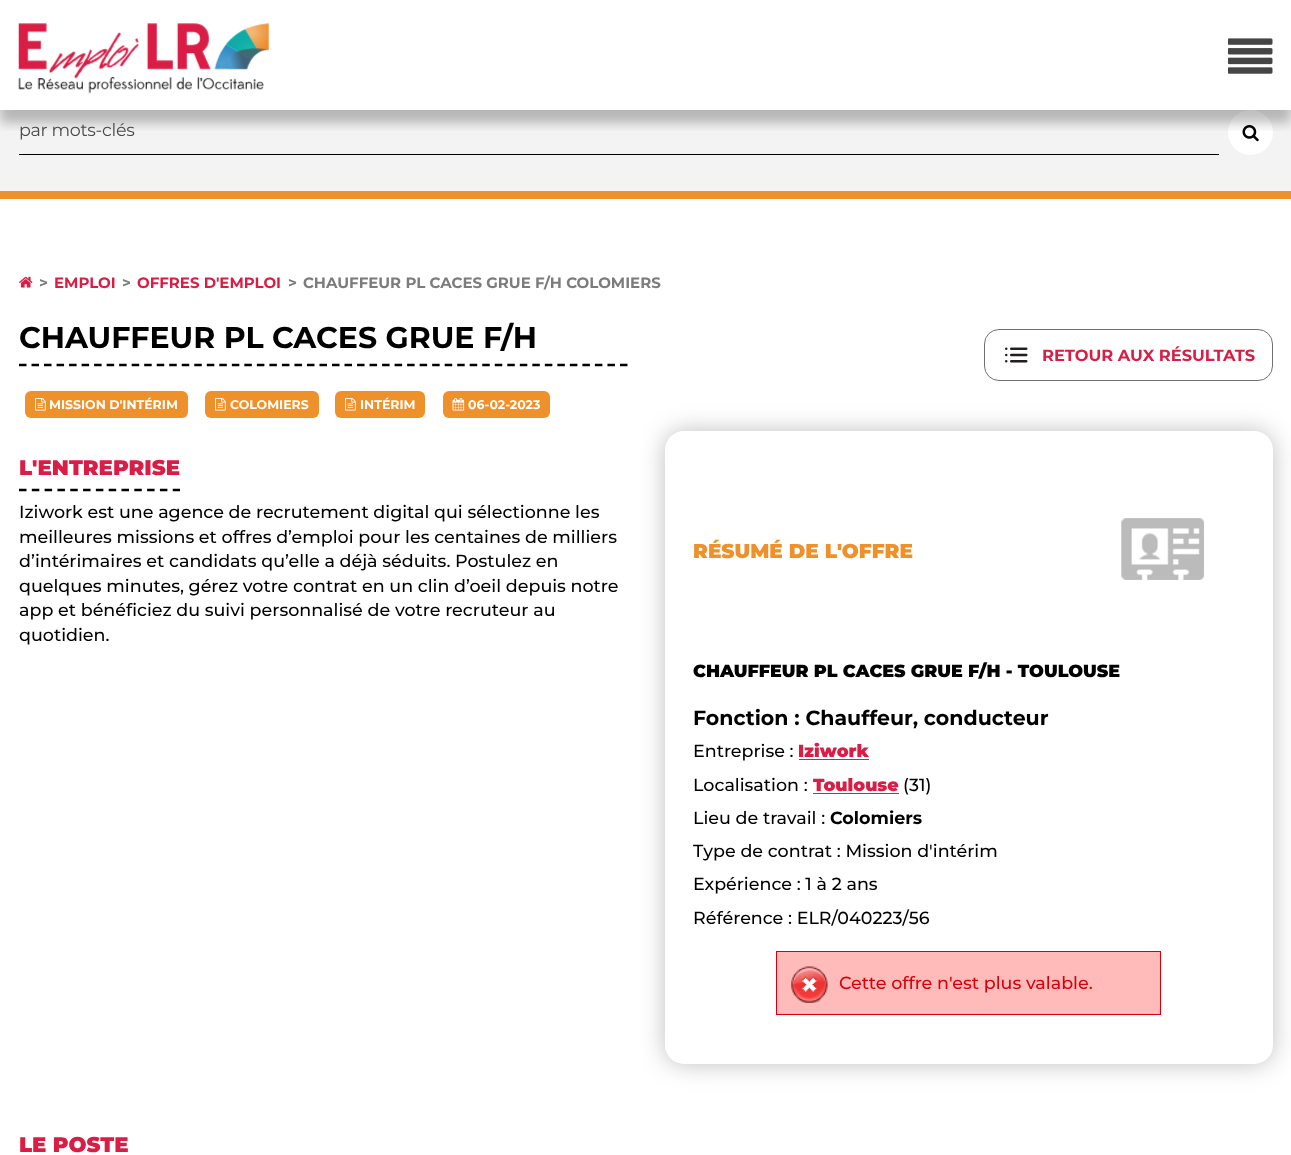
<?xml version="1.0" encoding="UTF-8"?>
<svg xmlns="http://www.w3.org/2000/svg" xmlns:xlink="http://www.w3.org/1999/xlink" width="1291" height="1155">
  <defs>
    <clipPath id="clip1"><rect x="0" y="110" width="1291" height="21" /></clipPath>
  </defs>
  <rect width="100%" height="100%" fill="#ffffff" />
  <image x="18" y="23" width="251" height="71" xlink:href="image1.png" />
  <image x="1228" y="38" width="45" height="36" xlink:href="image2.png" />
  <rect y="110" width="1291" height="81" fill="#f3f3f3" />
  <circle cx="1250.5" cy="132.5" r="22.5" fill="#ffffff" />
  <image x="1242" y="125" width="17" height="17" xlink:href="image3.png" />
  <g clip-path="url(#clip1)">
    <rect y="13" width="1291" height="110" fill="#000000" fill-opacity="0.25" filter="blur(6px)" />
  </g>
  <rect x="19" y="154" width="1200" height="1" fill="#000000" />
  <rect y="191" width="1291" height="8" fill="#ee912a" />
  <image x="19" y="276" width="14" height="12" xlink:href="image4.png" />
  <path d="M 19 365 h 608.5" fill="none" stroke="#000000" stroke-width="2.5" stroke-dasharray="7.5 5.02" />
  <rect x="25" y="391" width="163" height="27" rx="6" fill="#ee912a" />
  <image x="35" y="398" width="11" height="13" xlink:href="image5.png" />
  <rect x="205" y="391" width="114" height="27" rx="6" fill="#ee912a" />
  <image x="215" y="398" width="11" height="13" xlink:href="image5.png" />
  <rect x="335" y="391" width="90" height="27" rx="6" fill="#ee912a" />
  <image x="345" y="398" width="11" height="13" xlink:href="image5.png" />
  <rect x="443" y="391" width="107" height="27" rx="6" fill="#ee912a" />
  <image x="452" y="398" width="13" height="13" xlink:href="image6.png" />
  <path d="M 19 490 h 161" fill="none" stroke="#000000" stroke-width="2.5" stroke-dasharray="7.5 5.31" />
  <rect x="665" y="431" width="608" height="633" rx="19" fill="#000000" fill-opacity="0.25" filter="blur(12.5px)" />
  <rect x="665" y="431" width="608" height="633" rx="19" fill="#ffffff" />
  <image x="1121" y="518" width="83" height="62" xlink:href="image7.png" />
  <rect x="799" y="759" width="70" height="1" fill="#da1d45" />
  <rect x="813" y="793" width="86" height="1" fill="#da1d45" />
  <rect x="777" y="952" width="383" height="62" fill="#ffbaba" />
  <image x="791" y="966" width="37" height="37" xlink:href="image8.png" />
  <rect x="776.5" y="951.5" width="384" height="63" fill="none" stroke="#d8000c" />
  <rect x="984.5" y="329.5" width="288" height="51" rx="14.5" fill="none" stroke="#707070" />
  <image x="1005" y="347" width="23" height="16" xlink:href="image9.png" />
  <text x="19" y="136" style="font-family: Montserrat; font-size: 17.5px; letter-spacing: -0.3px; fill: #494949">par mots-clés</text>
  <text x="39" y="288" style="font-family: Montserrat; font-size: 15px; font-weight: bold; fill: #7c7c7c">&gt;</text>
  <text x="54" y="288" style="font-family: Montserrat; font-size: 15px; font-weight: bold; fill: #da1d45">EMPLOI</text>
  <text x="122" y="288" style="font-family: Montserrat; font-size: 15px; font-weight: bold; fill: #7c7c7c">&gt;</text>
  <text x="137" y="288" style="font-family: Montserrat; font-size: 15px; font-weight: bold; fill: #da1d45">OFFRES D'EMPLOI</text>
  <text x="288" y="288" style="font-family: Montserrat; font-size: 15px; font-weight: bold; fill: #7c7c7c">&gt;</text>
  <text x="303" y="288" style="font-family: Montserrat; font-size: 15px; font-weight: bold; fill: #7c7c7c">CHAUFFEUR PL CACES GRUE F/H COLOMIERS</text>
  <text x="19" y="348" style="font-family: Montserrat; font-size: 30px; font-weight: bold; fill: #000000">CHAUFFEUR PL CACES GRUE F/H</text>
  <text x="49" y="409" style="font-family: Montserrat; font-size: 12.5px; font-weight: bold; fill: #ffffff">MISSION D'INTÉRIM</text>
  <text x="230" y="409" style="font-family: Montserrat; font-size: 12.5px; font-weight: bold; fill: #ffffff">COLOMIERS</text>
  <text x="360" y="409" style="font-family: Montserrat; font-size: 12.5px; font-weight: bold; fill: #ffffff">INTÉRIM</text>
  <text x="468" y="409" style="font-family: Montserrat; font-size: 12.5px; font-weight: bold; fill: #ffffff">06-02-2023</text>
  <text x="19" y="475" style="font-family: Montserrat; font-size: 21.25px; font-weight: 900; fill: #da1d45">L'ENTREPRISE</text>
  <text x="19" y="518" style="font-family: Montserrat; font-size: 17.5px; font-weight: 500; fill: #000000">Iziwork est une agence de recrutement digital qui sélectionne les</text>
  <text x="19" y="543" style="font-family: Montserrat; font-size: 17.5px; font-weight: 500; fill: #000000">meilleures missions et offres d’emploi pour les centaines de milliers</text>
  <text x="19" y="567" style="font-family: Montserrat; font-size: 17.5px; font-weight: 500; fill: #000000">d’intérimaires et candidats qu’elle a déjà séduits. Postulez en</text>
  <text x="19" y="592" style="font-family: Montserrat; font-size: 17.5px; font-weight: 500; fill: #000000">quelques minutes, gérez votre contrat en un clin d’oeil depuis notre</text>
  <text x="19" y="616" style="font-family: Montserrat; font-size: 17.5px; font-weight: 500; fill: #000000">app et bénéficiez du suivi personnalisé de votre recruteur au</text>
  <text x="19" y="641" style="font-family: Montserrat; font-size: 17.5px; font-weight: 500; fill: #000000">quotidien.</text>
  <text x="693" y="558" style="font-family: Montserrat; font-size: 20px; font-weight: 900; fill: #ee912a">RÉSUMÉ DE L'OFFRE</text>
  <text x="693" y="677" style="font-family: Montserrat; font-size: 17.5px; font-weight: 900; fill: #000000">CHAUFFEUR PL CACES GRUE F/H - TOULOUSE</text>
  <text x="693" y="725" style="font-family: Montserrat; font-size: 20.5px; font-weight: bold; fill: #000000">Fonction : Chauffeur, conducteur</text>
  <text x="693" y="757" style="font-family: Montserrat; font-size: 17.5px; font-weight: 500; fill: #000000">Entreprise :</text>
  <text x="798" y="757" style="font-family: Montserrat; font-size: 17.5px; font-weight: 900; fill: #da1d45">Iziwork</text>
  <text x="693" y="791" style="font-family: Montserrat; font-size: 17.5px; font-weight: 500; fill: #000000">Localisation :</text>
  <text x="813" y="791" style="font-family: Montserrat; font-size: 17.5px; font-weight: 900; fill: #da1d45">Toulouse</text>
  <text x="903" y="791" style="font-family: Montserrat; font-size: 17.5px; font-weight: 500; fill: #000000">(31)</text>
  <text x="693" y="824" style="font-family: Montserrat; font-size: 17.5px; font-weight: 500; fill: #000000">Lieu de travail :</text>
  <text x="830" y="824" style="font-family: Montserrat; font-size: 17.5px; font-weight: bold; fill: #000000">Colomiers</text>
  <text x="693" y="857" style="font-family: Montserrat; font-size: 17.5px; font-weight: 500; fill: #000000">Type de contrat : Mission d'intérim</text>
  <text x="693" y="890" style="font-family: Montserrat; font-size: 17.5px; font-weight: 500; fill: #000000">Expérience : 1 à 2 ans</text>
  <text x="693" y="924" style="font-family: Montserrat; font-size: 17.5px; font-weight: 500; fill: #000000">Référence : ELR/040223/56</text>
  <text x="839" y="989" style="font-family: Montserrat; font-size: 17.5px; font-weight: 500; fill: #d8000c">Cette offre n'est plus valable.</text>
  <text x="1042" y="361" style="font-family: Montserrat; font-size: 16.25px; font-weight: bold; fill: #da1d45">RETOUR AUX RÉSULTATS</text>
  <text x="19" y="1152" style="font-family: Montserrat; font-size: 21.25px; font-weight: 900; fill: #da1d45">LE POSTE</text>
</svg>
